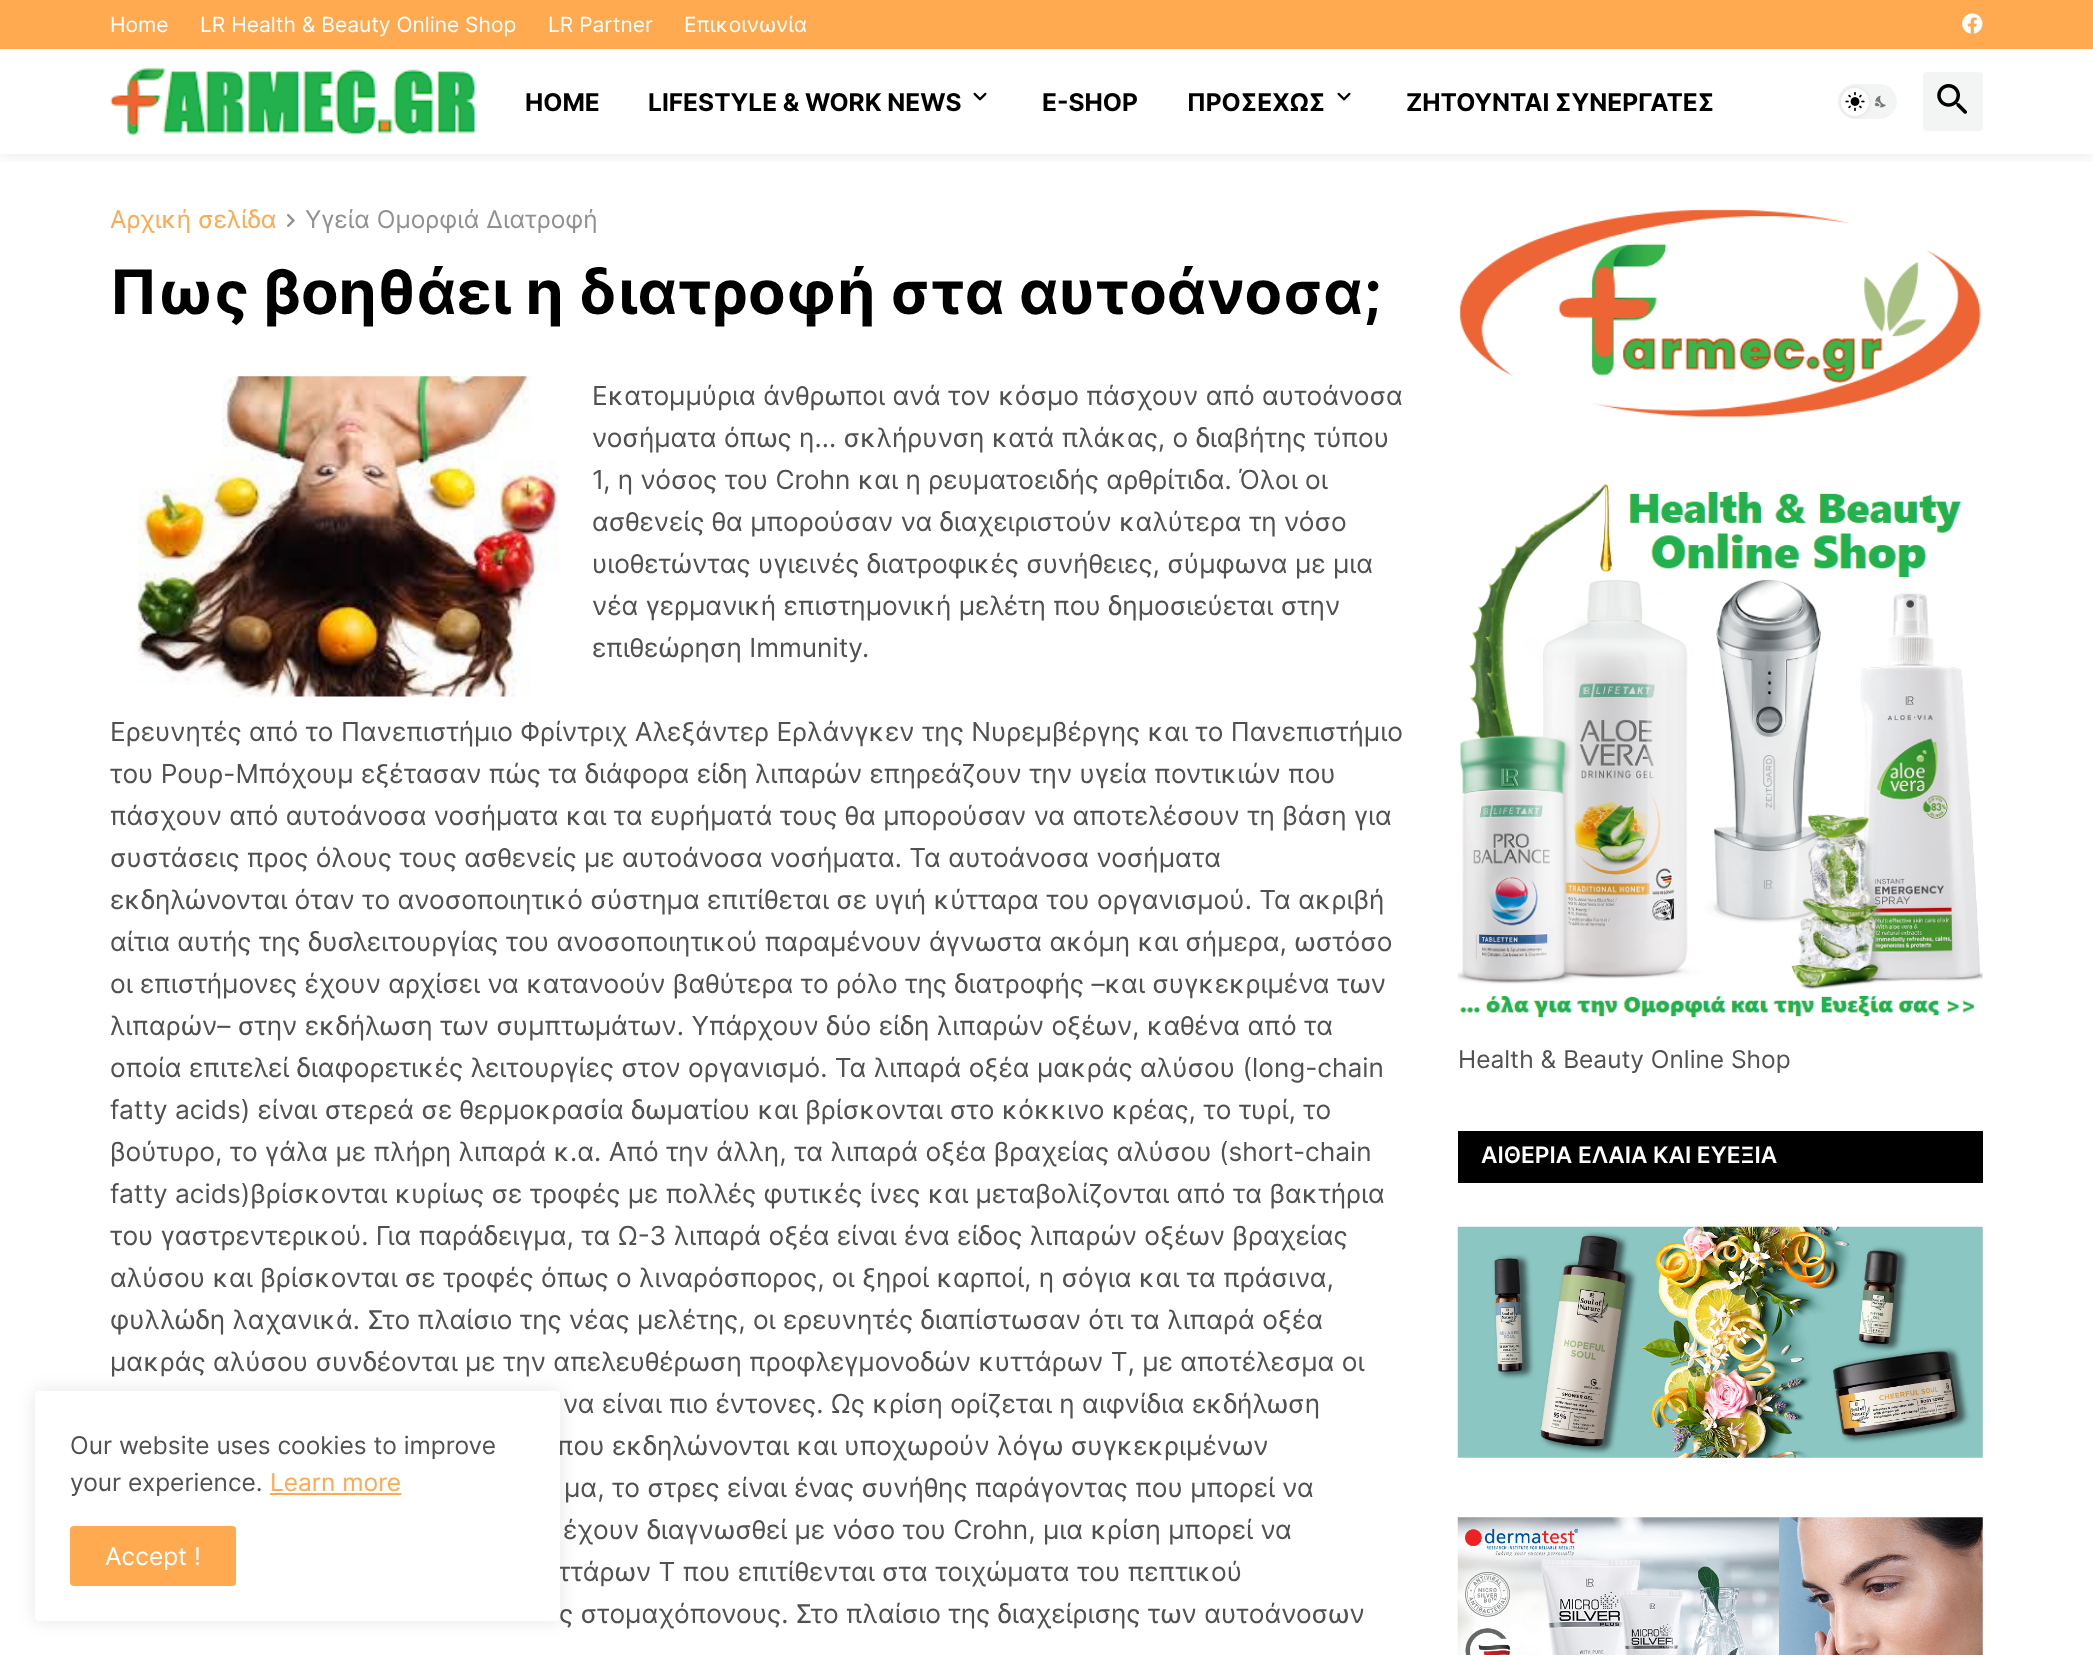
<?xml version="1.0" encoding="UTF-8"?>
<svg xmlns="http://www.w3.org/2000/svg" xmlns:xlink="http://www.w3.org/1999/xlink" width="2093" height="1655">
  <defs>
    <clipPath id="clip1"><rect x="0" y="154" width="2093" height="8" /></clipPath>
  </defs>
  <rect width="100%" height="100%" fill="#ffffff" />
  <g clip-path="url(#clip1)">
    <rect y="49" width="2093" height="105" fill="#000000" fill-opacity="0.1" filter="blur(9px)" />
  </g>
  <rect width="2093" height="49" fill="#ffa951" />
  <image x="1962" y="13" width="21" height="21" xlink:href="image1.png" />
  <image x="110" y="67" width="366" height="69" xlink:href="image2.png" />
  <image x="973" y="92" width="14" height="9" xlink:href="image3.png" />
  <image x="1337" y="92" width="14" height="9" xlink:href="image3.png" />
  <rect x="1838" y="84" width="59" height="35" rx="17.5" fill="#f3f5f5" />
  <image x="1874" y="95" width="12" height="13" xlink:href="image5.png" />
  <rect x="1841" y="88" width="28" height="28" rx="14" fill="#000000" fill-opacity="0.1" filter="blur(2px)" />
  <circle cx="1855" cy="102" r="14" fill="#ffffff" />
  <image x="1845" y="91" width="20" height="21" xlink:href="image4.png" />
  <rect x="1923" y="72" width="60" height="59" rx="4" fill="#f3f5f5" />
  <image x="1937" y="84" width="30" height="30" xlink:href="image6.png" />
  <image x="287" y="214" width="8" height="13" xlink:href="image7.png" />
  <image x="136" y="376" width="423" height="321" xlink:href="image8.png" />
  <image x="1460" y="209" width="521" height="209" xlink:href="image9.png" />
  <image x="1457" y="484" width="526" height="534" xlink:href="image10.png" />
  <rect x="1458" y="1131" width="525" height="52" fill="#000000" />
  <image x="1457" y="1226" width="526" height="232" xlink:href="image11.png" />
  <image x="1457" y="1517" width="526" height="138" xlink:href="image12.png" />
  <rect x="35" y="1391" width="525" height="230" rx="4" fill="#000000" fill-opacity="0.1" filter="blur(9px)" />
  <text x="110" y="32" style="font-family: Inter; font-size: 21px; fill: #ffffff">Home</text>
  <text x="200" y="32" style="font-family: Inter; font-size: 21px; fill: #ffffff">LR Health &amp; Beauty Online Shop</text>
  <text x="548" y="32" style="font-family: Inter; font-size: 21px; fill: #ffffff">LR Partner</text>
  <text x="684" y="32" style="font-family: Inter; font-size: 21px; fill: #ffffff">Επικοινωνία</text>
  <text x="525" y="111" style="font-family: Inter; font-size: 24.5px; font-weight: bold; fill: #000000">HOME</text>
  <text x="648" y="111" style="font-family: Inter; font-size: 24.5px; font-weight: bold; fill: #000000">LIFESTYLE &amp; WORK NEWS</text>
  <text x="1042" y="111" style="font-family: Inter; font-size: 24.5px; font-weight: bold; fill: #000000">E-SHOP</text>
  <text x="1187" y="111" style="font-family: Inter; font-size: 24.5px; font-weight: bold; fill: #000000">ΠΡΟΣΕΧΩΣ</text>
  <text x="1406" y="111" style="font-family: Inter; font-size: 24.5px; font-weight: bold; fill: #000000">ΖΗΤΟΥΝΤΑΙ ΣΥΝΕΡΓΑΤΕΣ</text>
  <text x="110" y="228" style="font-family: Inter; font-size: 24.5px; fill: #ffa951">Αρχική σελίδα</text>
  <text x="305" y="228" style="font-family: Inter; font-size: 24.5px; fill: #919191">Υγεία Ομορφιά Διατροφή</text>
  <text x="110" y="314" style="font-family: Inter; font-size: 61.25px; font-weight: bold; fill: #000000">Πως βοηθάει η διατροφή στα αυτοάνοσα;</text>
  <text x="592" y="405" style="font-family: Inter; font-size: 26.25px; fill: #515151">Εκατομμύρια άνθρωποι ανά τον κόσμο πάσχουν από αυτοάνοσα</text>
  <text x="592" y="447" style="font-family: Inter; font-size: 26.25px; fill: #515151">νοσήματα όπως η... σκλήρυνση κατά πλάκας, ο διαβήτης τύπου</text>
  <text x="592" y="489" style="font-family: Inter; font-size: 26.25px; fill: #515151">1, η νόσος του Crohn και η ρευματοειδής αρθρίτιδα. Όλοι οι</text>
  <text x="592" y="531" style="font-family: Inter; font-size: 26.25px; fill: #515151">ασθενείς θα μπορούσαν να διαχειριστούν καλύτερα τη νόσο</text>
  <text x="592" y="573" style="font-family: Inter; font-size: 26.25px; fill: #515151">υιοθετώντας υγιεινές διατροφικές συνήθειες, σύμφωνα με μια</text>
  <text x="592" y="615" style="font-family: Inter; font-size: 26.25px; fill: #515151">νέα γερμανική επιστημονική μελέτη που δημοσιεύεται στην</text>
  <text x="592" y="657" style="font-family: Inter; font-size: 26.25px; fill: #515151">επιθεώρηση Immunity.</text>
  <text x="110" y="741" style="font-family: Inter; font-size: 26.25px; fill: #515151">Ερευνητές από το Πανεπιστήμιο Φρίντριχ Αλεξάντερ Ερλάνγκεν της Νυρεμβέργης και το Πανεπιστήμιο</text>
  <text x="110" y="783" style="font-family: Inter; font-size: 26.25px; fill: #515151">του Ρουρ-Μπόχουμ εξέτασαν πώς τα διάφορα είδη λιπαρών επηρεάζουν την υγεία ποντικιών που</text>
  <text x="110" y="825" style="font-family: Inter; font-size: 26.25px; fill: #515151">πάσχουν από αυτοάνοσα νοσήματα και τα ευρήματά τους θα μπορούσαν να αποτελέσουν τη βάση για</text>
  <text x="110" y="867" style="font-family: Inter; font-size: 26.25px; fill: #515151">συστάσεις προς όλους τους ασθενείς με αυτοάνοσα νοσήματα. Τα αυτοάνοσα νοσήματα</text>
  <text x="110" y="909" style="font-family: Inter; font-size: 26.25px; fill: #515151">εκδηλώνονται όταν το ανοσοποιητικό σύστημα επιτίθεται σε υγιή κύτταρα του οργανισμού. Τα ακριβή</text>
  <text x="110" y="951" style="font-family: Inter; font-size: 26.25px; fill: #515151">αίτια αυτής της δυσλειτουργίας του ανοσοποιητικού παραμένουν άγνωστα ακόμη και σήμερα, ωστόσο</text>
  <text x="110" y="993" style="font-family: Inter; font-size: 26.25px; fill: #515151">οι επιστήμονες έχουν αρχίσει να κατανοούν βαθύτερα το ρόλο της διατροφής –και συγκεκριμένα των</text>
  <text x="110" y="1035" style="font-family: Inter; font-size: 26.25px; fill: #515151">λιπαρών– στην εκδήλωση των συμπτωμάτων. Υπάρχουν δύο είδη λιπαρών οξέων, καθένα από τα</text>
  <text x="110" y="1077" style="font-family: Inter; font-size: 26.25px; fill: #515151">οποία επιτελεί διαφορετικές λειτουργίες στον οργανισμό. Τα λιπαρά οξέα μακράς αλύσου (long-chain</text>
  <text x="110" y="1119" style="font-family: Inter; font-size: 26.25px; fill: #515151">fatty acids) είναι στερεά σε θερμοκρασία δωματίου και βρίσκονται στο κόκκινο κρέας, το τυρί, το</text>
  <text x="110" y="1161" style="font-family: Inter; font-size: 26.25px; fill: #515151">βούτυρο, το γάλα με πλήρη λιπαρά κ.α. Από την άλλη, τα λιπαρά οξέα βραχείας αλύσου (short-chain</text>
  <text x="110" y="1203" style="font-family: Inter; font-size: 26.25px; fill: #515151">fatty acids)βρίσκονται κυρίως σε τροφές με πολλές φυτικές ίνες και μεταβολίζονται από τα βακτήρια</text>
  <text x="110" y="1245" style="font-family: Inter; font-size: 26.25px; fill: #515151">του γαστρεντερικού. Για παράδειγμα, τα Ω-3 λιπαρά οξέα είναι ένα είδος λιπαρών οξέων βραχείας</text>
  <text x="110" y="1287" style="font-family: Inter; font-size: 26.25px; fill: #515151">αλύσου και βρίσκονται σε τροφές όπως ο λιναρόσπορος, οι ξηροί καρποί, η σόγια και τα πράσινα,</text>
  <text x="110" y="1329" style="font-family: Inter; font-size: 26.25px; fill: #515151">φυλλώδη λαχανικά. Στο πλαίσιο της νέας μελέτης, οι ερευνητές διαπίστωσαν ότι τα λιπαρά οξέα</text>
  <text x="110" y="1371" style="font-family: Inter; font-size: 26.25px; fill: #515151">μακράς αλύσου συνδέονται με την απελευθέρωση προφλεγμονοδών κυττάρων Τ, με αποτέλεσμα οι</text>
  <text x="563" y="1413" style="font-family: Inter; font-size: 26.25px; fill: #515151">να είναι πιο έντονες. Ως κρίση ορίζεται η αιφνίδια εκδήλωση</text>
  <text x="557" y="1455" style="font-family: Inter; font-size: 26.25px; fill: #515151">που εκδηλώνονται και υποχωρούν λόγω συγκεκριμένων</text>
  <text x="564" y="1497" style="font-family: Inter; font-size: 26.25px; fill: #515151">μα, το στρες είναι ένας συνήθης παράγοντας που μπορεί να</text>
  <text x="563" y="1539" style="font-family: Inter; font-size: 26.25px; fill: #515151">έχουν διαγνωσθεί με νόσο του Crohn, μια κρίση μπορεί να</text>
  <text x="558" y="1581" style="font-family: Inter; font-size: 26.25px; fill: #515151">ττάρων Τ που επιτίθενται στα τοιχώματα του πεπτικού</text>
  <text x="559" y="1623" style="font-family: Inter; font-size: 26.25px; fill: #515151">ς στομαχόπονους. Στο πλαίσιο της διαχείρισης των αυτοάνοσων</text>
  <text x="1458" y="1068" style="font-family: Inter; font-size: 24.5px; fill: #515151">Health &amp; Beauty Online Shop</text>
  <text x="1481" y="1163" style="font-family: Inter; font-size: 22.75px; font-weight: 600; fill: #ffffff">ΑΙΘΕΡΙΑ ΕΛΑΙΑ ΚΑΙ ΕΥΕΞΙΑ</text>
  <rect x="35" y="1391" width="525" height="230" rx="4" fill="#ffffff" />
  <text x="70" y="1454" style="font-family: Inter; font-size: 24.5px; fill: #515151">Our website uses cookies to improve</text>
  <text x="70" y="1491" style="font-family: Inter; font-size: 24.5px; fill: #515151">your experience.</text>
  <text x="270" y="1491" style="font-family: Inter; font-size: 24.5px; fill: #ffa951">Learn more</text>
  <rect x="270" y="1493" width="131" height="2" fill="#ffa951" />
  <rect x="70" y="1526" width="166" height="60" rx="4" fill="#ffa951" />
  <text x="105" y="1565" style="font-family: Inter; font-size: 24.5px; fill: #ffffff">Accept !</text>
</svg>
